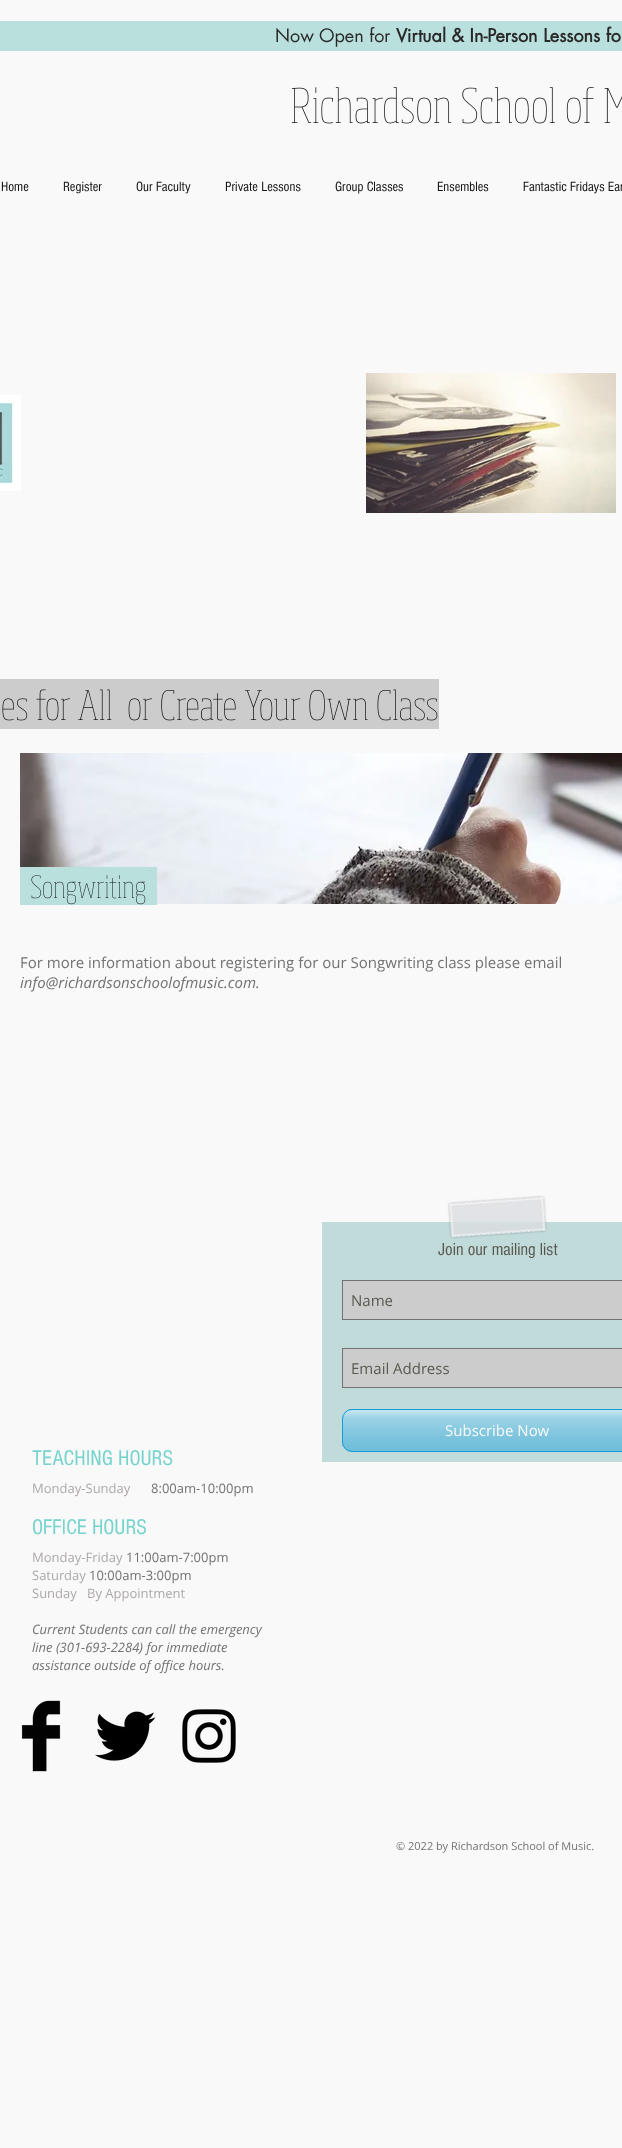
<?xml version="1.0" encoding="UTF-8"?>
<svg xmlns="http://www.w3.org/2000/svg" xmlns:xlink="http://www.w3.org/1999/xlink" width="622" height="2148">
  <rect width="100%" height="100%" fill="#f9f9f9" />
  <rect y="21" width="622" height="30" fill="#bae0de" />
  <image x="291" y="87" width="331" height="37" xlink:href="image1.png" />
  <image x="0" y="395" width="21" height="96" xlink:href="image2.png" />
  <image x="366" y="373" width="250" height="140" xlink:href="image3.png" />
  <rect y="679" width="439" height="50" fill="#cccccc" />
  <image x="2" y="689" width="436" height="32" xlink:href="image4.png" />
  <image x="20" y="753" width="602" height="151" xlink:href="image5.png" />
  <rect x="20" y="867" width="137" height="38" fill="#bae0de" />
  <image x="31" y="875" width="115" height="30" xlink:href="image6.png" />
  <rect x="322" y="1222" width="300" height="240" fill="#c1dbda" />
  <image x="447" y="1195" width="100" height="44" xlink:href="image7.png" />
  <rect x="342.5" y="1280.5" width="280" height="39" fill="#cdcccc" stroke="#727272" />
  <rect x="342.5" y="1348.5" width="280" height="39" fill="#cdcccc" stroke="#727272" />
  <rect x="342" y="1409" width="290" height="43" rx="10" fill="#69bcd9" />
  <image x="342" y="1410" width="280" height="42" xlink:href="image8.png" />
  <rect x="342.5" y="1409.5" width="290" height="42" rx="9.5" fill="none" stroke="#159ed8" />
  <image x="21" y="1700" width="40" height="72" xlink:href="image9.png" />
  <image x="95" y="1711" width="61" height="50" xlink:href="image10.png" />
  <image x="182" y="1709" width="54" height="54" xlink:href="image11.png" />
  <text x="275" y="42" style="font-family: futura; font-size: 18px; fill: #292929">Now Open for</text>
  <text x="396" y="42" style="font-family: futura; font-size: 18px; font-weight: bold; fill: #292929">Virtual &amp; In-Person Lessons fo</text>
  <text x="1" y="191" style="font-family: 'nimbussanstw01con'; font-size: 14px; fill: #141414">Home</text>
  <text x="63" y="191" style="font-family: 'nimbussanstw01con'; font-size: 14px; fill: #141414">Register</text>
  <text x="136" y="191" style="font-family: 'nimbussanstw01con'; font-size: 14px; fill: #141414">Our Faculty</text>
  <text x="225" y="191" style="font-family: 'nimbussanstw01con'; font-size: 14px; fill: #141414">Private Lessons</text>
  <text x="335" y="191" style="font-family: 'nimbussanstw01con'; font-size: 14px; fill: #141414">Group Classes</text>
  <text x="437" y="191" style="font-family: 'nimbussanstw01con'; font-size: 14px; fill: #141414">Ensembles</text>
  <text x="523" y="191" style="font-family: 'nimbussanstw01con'; font-size: 14px; fill: #141414">Fantastic Fridays Ear</text>
  <text x="20" y="968" style="font-family: Open Sans; font-size: 15px; fill: #727272">For more information about registering for our Songwriting class please email</text>
  <text x="20" y="988" style="font-family: Open Sans; font-size: 15px; font-style: italic; fill: #727272">info@richardsonschoolofmusic.com.</text>
  <text x="438" y="1255" style="font-family: 'nimbussanstw01con'; font-size: 18px; fill: #5a5950">Join our mailing list</text>
  <text x="351" y="1306" style="font-family: Open Sans; font-size: 15px; fill: #5a5950">Name</text>
  <text x="351" y="1374" style="font-family: Open Sans; font-size: 15px; fill: #5a5950">Email Address</text>
  <text x="445" y="1436" style="font-family: Open Sans; font-size: 15px; fill: #f9f9f9">Subscribe Now</text>
  <text x="32" y="1465" style="font-family: 'nimbussanstw01con'; font-size: 22px; fill: #77d4cd">TEACHING HOURS</text>
  <text x="32" y="1493" style="font-family: Open Sans; font-size: 13px; fill: #ada8a8">Monday-Sunday</text>
  <text x="151" y="1493" style="font-family: Open Sans; font-size: 13px; fill: #727272">8:00am-10:00pm</text>
  <text x="32" y="1534" style="font-family: 'nimbussanstw01con'; font-size: 22px; fill: #77d4cd">OFFICE HOURS</text>
  <text x="32" y="1562" style="font-family: Open Sans; font-size: 13px; fill: #ada8a8">Monday-Friday</text>
  <text x="126" y="1562" style="font-family: Open Sans; font-size: 13px; fill: #727272">11:00am-7:00pm</text>
  <text x="32" y="1580" style="font-family: Open Sans; font-size: 13px; fill: #ada8a8">Saturday</text>
  <text x="89" y="1580" style="font-family: Open Sans; font-size: 13px; fill: #727272">10:00am-3:00pm</text>
  <text x="32" y="1598" style="font-family: Open Sans; font-size: 13px; fill: #ada8a8" xml:space="preserve">Sunday   By Appointment</text>
  <text x="32" y="1634" style="font-family: Open Sans; font-size: 13px; font-style: italic; fill: #727272">Current Students can call the emergency</text>
  <text x="32" y="1652" style="font-family: Open Sans; font-size: 13px; font-style: italic; fill: #727272">line (301-693-2284) for immediate</text>
  <text x="32" y="1670" style="font-family: Open Sans; font-size: 13px; font-style: italic; fill: #727272">assistance outside of office hours.</text>
  <text x="396" y="1850" style="font-family: Open Sans; font-size: 11px; fill: #727272">© 2022 by Richardson School of Music.</text>
</svg>
